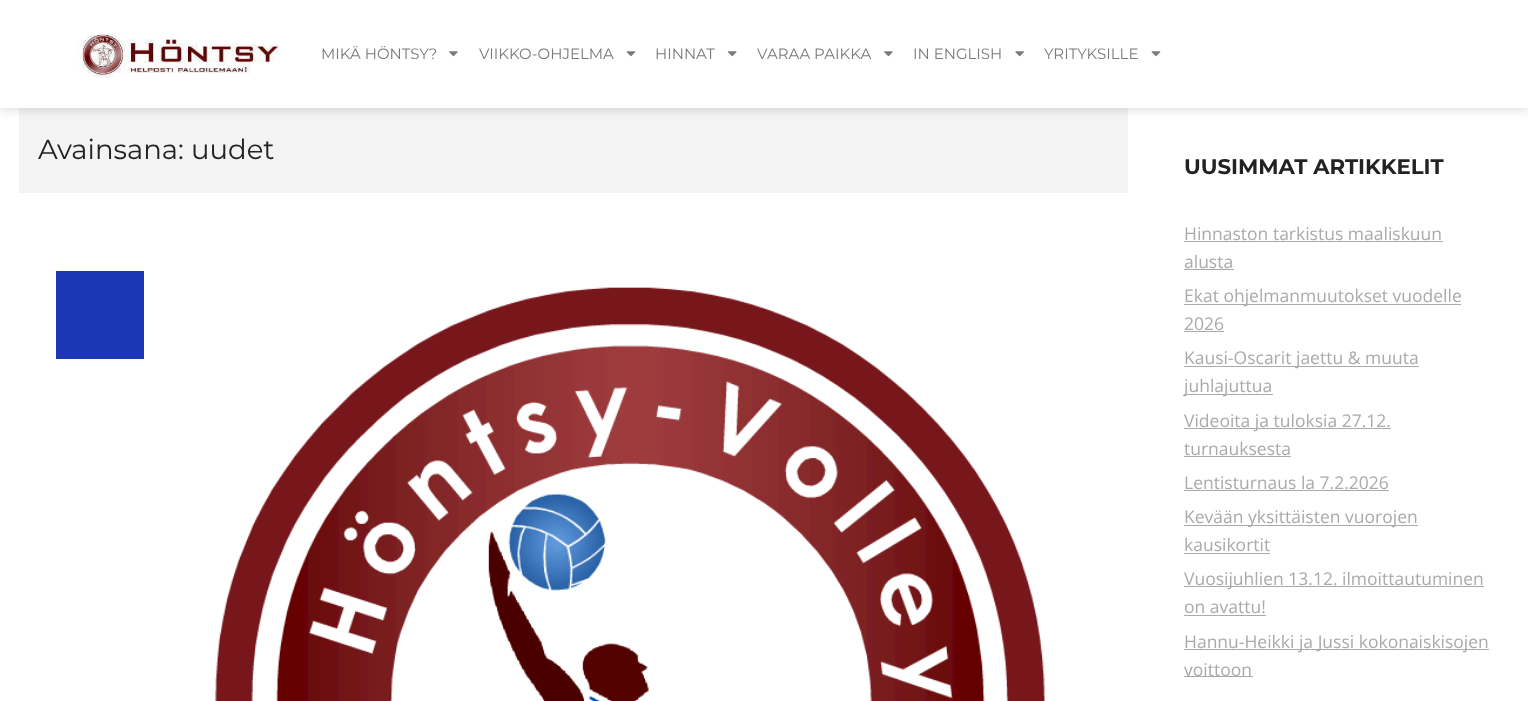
<?xml version="1.0" encoding="UTF-8"?>
<svg xmlns="http://www.w3.org/2000/svg" xmlns:xlink="http://www.w3.org/1999/xlink" width="1528" height="701">
  <rect width="100%" height="100%" fill="#ffffff" />
  <rect x="19" y="108" width="1109" height="85" fill="#f3f3f3" />
  <rect width="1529" height="108" fill="#000000" fill-opacity="0.18" filter="blur(6px)" />
  <rect width="1528" height="108" fill="#ffffff" />
  <image x="77" y="34" width="203" height="44" xlink:href="image1.png" />
  <image x="449" y="51" width="9" height="6" xlink:href="image2.png" />
  <image x="626" y="51" width="10" height="6" xlink:href="image3.png" />
  <image x="727" y="51" width="10" height="6" xlink:href="image4.png" />
  <image x="884" y="51" width="9" height="6" xlink:href="image2.png" />
  <image x="1015" y="51" width="9" height="6" xlink:href="image5.png" />
  <image x="1151" y="51" width="10" height="6" xlink:href="image3.png" />
  <rect x="56" y="271" width="88" height="88" fill="#1b37b5" />
  <image x="215" y="287" width="830" height="414" xlink:href="image6.png" />
  <rect x="1184" y="241" width="259" height="1" fill="#aaaaaa" />
  <rect x="1184" y="269" width="50" height="1" fill="#aaaaaa" />
  <rect x="1184" y="304" width="277" height="1" fill="#aaaaaa" />
  <rect x="1184" y="331" width="40" height="1" fill="#aaaaaa" />
  <rect x="1184" y="366" width="235" height="1" fill="#aaaaaa" />
  <rect x="1184" y="394" width="89" height="1" fill="#aaaaaa" />
  <rect x="1184" y="428" width="207" height="1" fill="#aaaaaa" />
  <rect x="1184" y="456" width="107" height="1" fill="#aaaaaa" />
  <rect x="1184" y="490" width="205" height="1" fill="#aaaaaa" />
  <rect x="1184" y="525" width="234" height="1" fill="#aaaaaa" />
  <rect x="1184" y="553" width="86" height="1" fill="#aaaaaa" />
  <rect x="1184" y="586" width="300" height="1" fill="#aaaaaa" />
  <rect x="1184" y="615" width="82" height="1" fill="#aaaaaa" />
  <rect x="1184" y="649" width="305" height="1" fill="#aaaaaa" />
  <rect x="1184" y="676" width="69" height="1" fill="#aaaaaa" />
  <text x="321" y="59" style="font-family: Montserrat; font-size: 15px; fill: #7a7a7a">MIKÄ HÖNTSY?</text>
  <text x="479" y="59" style="font-family: Montserrat; font-size: 15px; fill: #7a7a7a">VIIKKO-OHJELMA</text>
  <text x="655" y="59" style="font-family: Montserrat; font-size: 15px; fill: #7a7a7a">HINNAT</text>
  <text x="757" y="59" style="font-family: Montserrat; font-size: 15px; fill: #7a7a7a">VARAA PAIKKA</text>
  <text x="913" y="59" style="font-family: Montserrat; font-size: 15px; fill: #7a7a7a">IN ENGLISH</text>
  <text x="1044" y="59" style="font-family: Montserrat; font-size: 15px; fill: #7a7a7a">YRITYKSILLE</text>
  <text x="38" y="159" style="font-family: Montserrat; font-size: 27.5px; fill: #222222">Avainsana: uudet</text>
  <text x="1184" y="174" style="font-family: Montserrat; font-size: 21.25px; font-weight: bold; fill: #222222">UUSIMMAT ARTIKKELIT</text>
  <text x="1184" y="240" style="font-family: Open Sans; font-size: 17.5px; fill: #aaaaaa">Hinnaston tarkistus maaliskuun</text>
  <text x="1184" y="268" style="font-family: Open Sans; font-size: 17.5px; fill: #aaaaaa">alusta</text>
  <text x="1184" y="302" style="font-family: Open Sans; font-size: 17.5px; fill: #aaaaaa">Ekat ohjelmanmuutokset vuodelle</text>
  <text x="1184" y="330" style="font-family: Open Sans; font-size: 17.5px; fill: #aaaaaa">2026</text>
  <text x="1184" y="364" style="font-family: Open Sans; font-size: 17.5px; fill: #aaaaaa">Kausi-Oscarit jaettu &amp; muuta</text>
  <text x="1184" y="392" style="font-family: Open Sans; font-size: 17.5px; fill: #aaaaaa">juhlajuttua</text>
  <text x="1184" y="427" style="font-family: Open Sans; font-size: 17.5px; fill: #aaaaaa">Videoita ja tuloksia 27.12.</text>
  <text x="1184" y="455" style="font-family: Open Sans; font-size: 17.5px; fill: #aaaaaa">turnauksesta</text>
  <text x="1184" y="489" style="font-family: Open Sans; font-size: 17.5px; fill: #aaaaaa">Lentisturnaus la 7.2.2026</text>
  <text x="1184" y="523" style="font-family: Open Sans; font-size: 17.5px; fill: #aaaaaa">Kevään yksittäisten vuorojen</text>
  <text x="1184" y="551" style="font-family: Open Sans; font-size: 17.5px; fill: #aaaaaa">kausikortit</text>
  <text x="1184" y="585" style="font-family: Open Sans; font-size: 17.5px; fill: #aaaaaa">Vuosijuhlien 13.12. ilmoittautuminen</text>
  <text x="1184" y="613" style="font-family: Open Sans; font-size: 17.5px; fill: #aaaaaa">on avattu!</text>
  <text x="1184" y="648" style="font-family: Open Sans; font-size: 17.5px; fill: #aaaaaa">Hannu-Heikki ja Jussi kokonaiskisojen</text>
  <text x="1184" y="676" style="font-family: Open Sans; font-size: 17.5px; fill: #aaaaaa">voittoon</text>
</svg>
